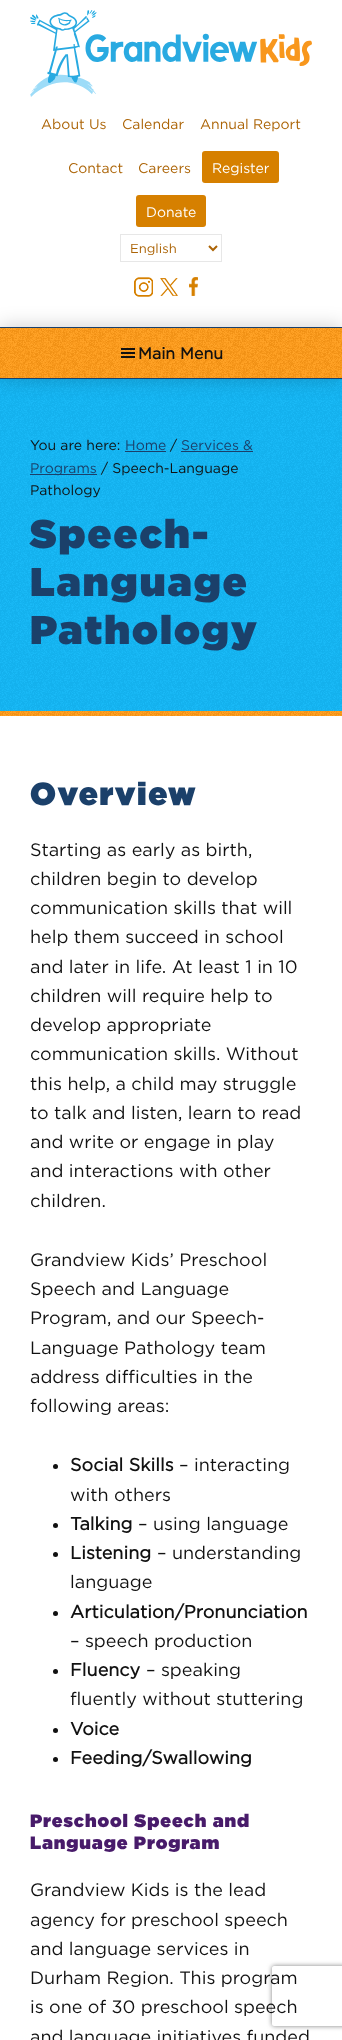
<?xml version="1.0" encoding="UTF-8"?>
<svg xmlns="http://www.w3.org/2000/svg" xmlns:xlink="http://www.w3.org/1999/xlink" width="342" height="2040">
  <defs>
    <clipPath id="clip1"><path d="M 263 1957 h 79 v 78 h -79 z m 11 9 h 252 c 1 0 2 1 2 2 v 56 c 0 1 -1 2 -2 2 h -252 c -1 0 -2 -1 -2 -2 v -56 c 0 -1 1 -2 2 -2 z" clip-rule="evenodd" /></clipPath>
  </defs>
  <rect width="100%" height="100%" fill="#ffffff" />
  <image x="30" y="10" width="282" height="87" xlink:href="image1.png" />
  <rect x="202" y="151" width="77" height="32" rx="3" fill="#d68000" />
  <rect x="136" y="195" width="70" height="32" rx="3" fill="#d68000" />
  <rect x="120.5" y="234.5" width="101" height="27" fill="none" stroke="#e7e7e7" />
  <path d="M 209 246 l 4 4 l 4 -4" fill="none" stroke="#ac6406" stroke-width="2" />
  <image x="134" y="277" width="19" height="20" xlink:href="image2.png" />
  <image x="160" y="278" width="18" height="18" xlink:href="image3.png" />
  <image x="189" y="277" width="9" height="19" xlink:href="image4.png" />
  <image x="0" y="379" width="342" height="332" xlink:href="image7.png" />
  <rect y="327" width="342" height="52" fill="#000000" fill-opacity="0.2" filter="blur(10px)" />
  <image x="0" y="328" width="342" height="50" xlink:href="image5.png" />
  <rect y="327" width="342" height="1" fill="#1b406a" />
  <rect y="378" width="342" height="1" fill="#1b406a" />
  <image x="121" y="348" width="14" height="10" xlink:href="image6.png" />
  <rect x="125" y="451" width="41" height="1" fill="#1b406a" />
  <rect x="181" y="451" width="72" height="1" fill="#1b406a" />
  <rect x="30" y="474" width="67" height="1" fill="#1b406a" />
  <image x="0" y="711" width="342" height="5" xlink:href="image8.png" />
  <circle cx="55.5" cy="1466.5" r="2.5" fill="#111111" />
  <circle cx="55.5" cy="1525.5" r="2.5" fill="#111111" />
  <circle cx="55.5" cy="1554.5" r="2.5" fill="#111111" />
  <circle cx="55.5" cy="1613.5" r="2.5" fill="#111111" />
  <circle cx="55.5" cy="1671.5" r="2.5" fill="#111111" />
  <circle cx="55.5" cy="1730.5" r="2.5" fill="#111111" />
  <circle cx="55.5" cy="1759.5" r="2.5" fill="#111111" />
  <g clip-path="url(#clip1)">
    <rect x="272" y="1966" width="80" height="60" rx="2" fill="#808080" filter="blur(2.5px)" />
  </g>
  <text x="41" y="129" style="font-family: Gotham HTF; font-size: 14px; fill: #ac6406">About Us</text>
  <text x="122" y="129" style="font-family: Gotham HTF; font-size: 14px; fill: #ac6406">Calendar</text>
  <text x="200" y="129" style="font-family: Gotham HTF; font-size: 14px; fill: #ac6406">Annual Report</text>
  <text x="68" y="173" style="font-family: Gotham HTF; font-size: 14px; fill: #ac6406">Contact</text>
  <text x="138" y="173" style="font-family: Gotham HTF; font-size: 14px; fill: #ac6406">Careers</text>
  <text x="212" y="173" style="font-family: Gotham HTF; font-size: 14px; fill: #ffffff">Register</text>
  <text x="146" y="217" style="font-family: Gotham HTF; font-size: 14px; fill: #ffffff">Donate</text>
  <text x="130" y="253" style="font-family: Gotham HTF; font-size: 13px; fill: #ac6406">English</text>
  <text x="138" y="359" style="font-family: Gotham HTF; font-size: 16px; font-weight: bold; fill: #111111">Main Menu</text>
  <text x="30" y="450" style="font-family: Gotham HTF; font-size: 14px; fill: #111111">You are here:</text>
  <text x="125" y="450" style="font-family: Gotham HTF; font-size: 14px; fill: #1b406a">Home</text>
  <text x="170" y="450" style="font-family: Gotham HTF; font-size: 14px; fill: #111111">/</text>
  <text x="181" y="450" style="font-family: Gotham HTF; font-size: 14px; fill: #1b406a">Services &amp;</text>
  <text x="30" y="473" style="font-family: Gotham HTF; font-size: 14px; fill: #1b406a">Programs</text>
  <text x="101" y="473" style="font-family: Gotham HTF; font-size: 14px; fill: #111111">/ Speech-Language</text>
  <text x="30" y="495" style="font-family: Gotham HTF; font-size: 14px; fill: #111111">Pathology</text>
  <text x="30" y="548" style="font-family: Gotham HTF; font-size: 40px; font-weight: 800; letter-spacing: 2px; fill: #1b406a">Speech-</text>
  <text x="30" y="596" style="font-family: Gotham HTF; font-size: 40px; font-weight: 800; letter-spacing: 2px; fill: #1b406a">Language</text>
  <text x="30" y="644" style="font-family: Gotham HTF; font-size: 40px; font-weight: 800; letter-spacing: 2px; fill: #1b406a">Pathology</text>
  <text x="30" y="805" style="font-family: Gotham HTF; font-size: 32px; font-weight: 800; letter-spacing: 1.5px; fill: #1b406a">Overview</text>
  <text x="30" y="856" style="font-family: Gotham HTF; font-size: 18px; fill: #111111">Starting as early as birth,</text>
  <text x="30" y="885" style="font-family: Gotham HTF; font-size: 18px; fill: #111111">children begin to develop</text>
  <text x="30" y="914" style="font-family: Gotham HTF; font-size: 18px; fill: #111111">communication skills that will</text>
  <text x="30" y="943" style="font-family: Gotham HTF; font-size: 18px; fill: #111111">help them succeed in school</text>
  <text x="30" y="973" style="font-family: Gotham HTF; font-size: 18px; fill: #111111">and later in life. At least 1 in 10</text>
  <text x="30" y="1002" style="font-family: Gotham HTF; font-size: 18px; fill: #111111">children will require help to</text>
  <text x="30" y="1031" style="font-family: Gotham HTF; font-size: 18px; fill: #111111">develop appropriate</text>
  <text x="30" y="1060" style="font-family: Gotham HTF; font-size: 18px; fill: #111111">communication skills. Without</text>
  <text x="30" y="1090" style="font-family: Gotham HTF; font-size: 18px; fill: #111111">this help, a child may struggle</text>
  <text x="30" y="1119" style="font-family: Gotham HTF; font-size: 18px; fill: #111111">to talk and listen, learn to read</text>
  <text x="30" y="1148" style="font-family: Gotham HTF; font-size: 18px; fill: #111111">and write or engage in play</text>
  <text x="30" y="1177" style="font-family: Gotham HTF; font-size: 18px; fill: #111111">and interactions with other</text>
  <text x="30" y="1207" style="font-family: Gotham HTF; font-size: 18px; fill: #111111">children.</text>
  <text x="30" y="1266" style="font-family: Gotham HTF; font-size: 18px; fill: #111111">Grandview Kids’ Preschool</text>
  <text x="30" y="1295" style="font-family: Gotham HTF; font-size: 18px; fill: #111111">Speech and Language</text>
  <text x="30" y="1324" style="font-family: Gotham HTF; font-size: 18px; fill: #111111">Program, and our Speech-</text>
  <text x="30" y="1354" style="font-family: Gotham HTF; font-size: 18px; fill: #111111">Language Pathology team</text>
  <text x="30" y="1383" style="font-family: Gotham HTF; font-size: 18px; fill: #111111">address difficulties in the</text>
  <text x="30" y="1412" style="font-family: Gotham HTF; font-size: 18px; fill: #111111">following areas:</text>
  <text x="70" y="1471" style="font-family: Gotham HTF; font-size: 18px; font-weight: bold; fill: #111111">Social Skills</text>
  <text x="179" y="1471" style="font-family: Gotham HTF; font-size: 18px; fill: #111111">– interacting</text>
  <text x="70" y="1501" style="font-family: Gotham HTF; font-size: 18px; fill: #111111">with others</text>
  <text x="70" y="1530" style="font-family: Gotham HTF; font-size: 18px; font-weight: bold; fill: #111111">Talking</text>
  <text x="138" y="1530" style="font-family: Gotham HTF; font-size: 18px; fill: #111111">– using language</text>
  <text x="70" y="1559" style="font-family: Gotham HTF; font-size: 18px; font-weight: bold; fill: #111111">Listening</text>
  <text x="157" y="1559" style="font-family: Gotham HTF; font-size: 18px; fill: #111111">– understanding</text>
  <text x="70" y="1588" style="font-family: Gotham HTF; font-size: 18px; fill: #111111">language</text>
  <text x="70" y="1618" style="font-family: Gotham HTF; font-size: 18px; font-weight: bold; fill: #111111">Articulation/Pronunciation</text>
  <text x="70" y="1647" style="font-family: Gotham HTF; font-size: 18px; fill: #111111">– speech production</text>
  <text x="70" y="1676" style="font-family: Gotham HTF; font-size: 18px; font-weight: bold; fill: #111111">Fluency</text>
  <text x="146" y="1676" style="font-family: Gotham HTF; font-size: 18px; fill: #111111">– speaking</text>
  <text x="70" y="1705" style="font-family: Gotham HTF; font-size: 18px; fill: #111111">fluently without stuttering</text>
  <text x="70" y="1735" style="font-family: Gotham HTF; font-size: 18px; font-weight: bold; fill: #111111">Voice</text>
  <text x="70" y="1764" style="font-family: Gotham HTF; font-size: 18px; font-weight: bold; fill: #111111">Feeding/Swallowing</text>
  <text x="30" y="1827" style="font-family: Gotham HTF; font-size: 18px; font-weight: 800; letter-spacing: 0.9px; fill: #481b6a">Preschool Speech and</text>
  <text x="30" y="1849" style="font-family: Gotham HTF; font-size: 18px; font-weight: 800; letter-spacing: 0.9px; fill: #481b6a">Language Program</text>
  <text x="30" y="1896" style="font-family: Gotham HTF; font-size: 18px; fill: #111111">Grandview Kids is the lead</text>
  <text x="30" y="1926" style="font-family: Gotham HTF; font-size: 18px; fill: #111111">agency for preschool speech</text>
  <text x="30" y="1955" style="font-family: Gotham HTF; font-size: 18px; fill: #111111">and language services in</text>
  <text x="30" y="1984" style="font-family: Gotham HTF; font-size: 18px; fill: #111111">Durham Region. This program</text>
  <text x="30" y="2013" style="font-family: Gotham HTF; font-size: 18px; fill: #111111">is one of 30 preschool speech</text>
  <text x="30" y="2043" style="font-family: Gotham HTF; font-size: 18px; fill: #111111">and language initiatives funded</text>
</svg>
